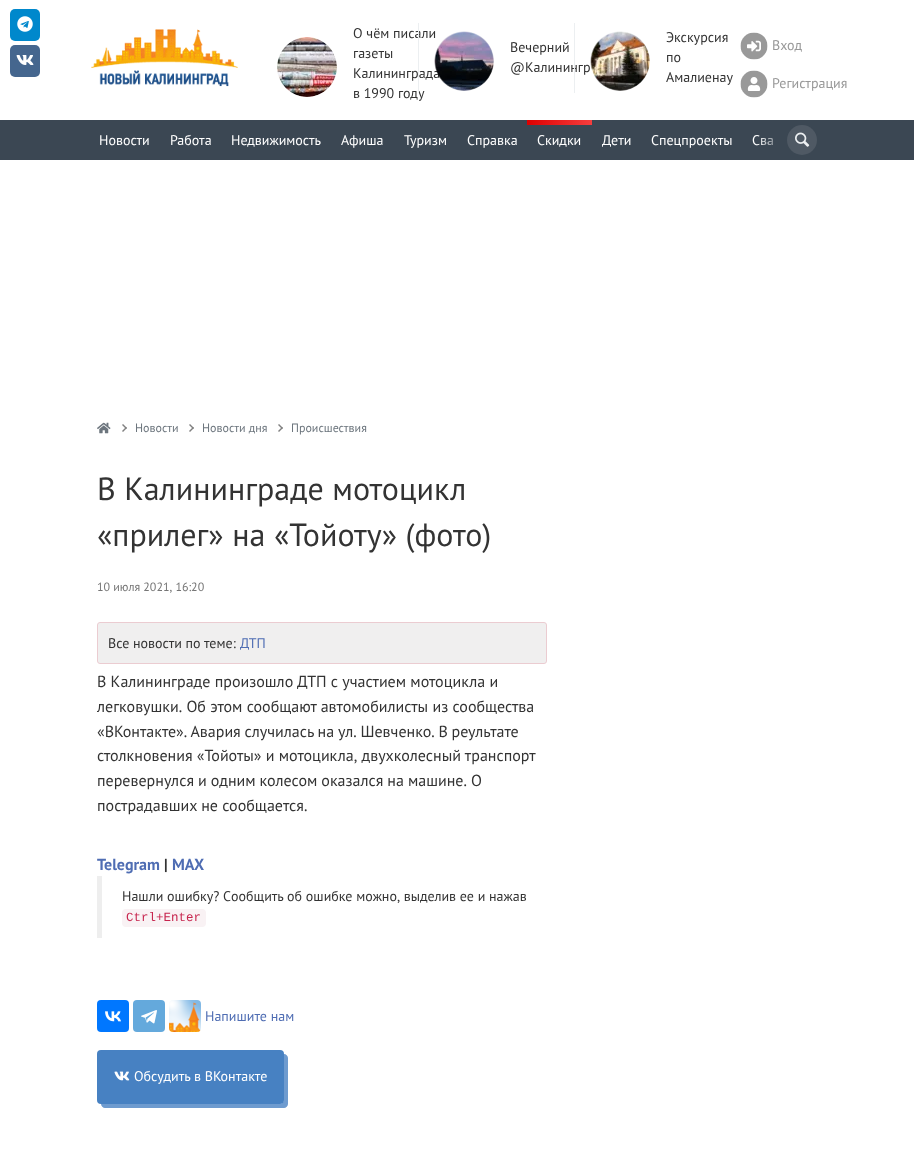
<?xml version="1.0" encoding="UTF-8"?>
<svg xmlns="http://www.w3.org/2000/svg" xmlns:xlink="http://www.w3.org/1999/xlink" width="914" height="1153">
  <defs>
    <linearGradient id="g1" gradientUnits="userSpaceOnUse" x1="616" y1="123" x2="527" y2="123"><stop offset="0" stop-color="#ff5555" /><stop offset="1" stop-color="#dd0000" /></linearGradient>
    <linearGradient id="g2" gradientUnits="userSpaceOnUse" x1="757" y1="140" x2="787" y2="140"><stop offset="0" stop-color="#3b4753" stop-opacity="0" /><stop offset="1" stop-color="#3b4753" /></linearGradient>
  </defs>
  <rect width="100%" height="100%" fill="#ffffff" />
  <rect x="10" y="9" width="30" height="32" rx="5" fill="#0088cc" />
  <image x="17" y="16" width="16" height="16" xlink:href="image1.png" />
  <rect x="10" y="45" width="30" height="32" rx="5" fill="#45668e" />
  <image x="16" y="55" width="18" height="10" xlink:href="image2.png" />
  <image x="91" y="29" width="147" height="58" xlink:href="image3.png" />
  <image x="277" y="37" width="60" height="60" xlink:href="image4.png" />
  <image x="590" y="31" width="60" height="60" xlink:href="image6.png" />
  <image x="740" y="32" width="28" height="28" xlink:href="image7.png" />
  <image x="740" y="70" width="28" height="28" xlink:href="image8.png" />
  <rect y="120" width="914" height="40" fill="#3b4753" />
  <rect x="527" y="120" width="65" height="5" fill="url(#g1)" />
  <circle cx="802" cy="140" r="15" fill="#4f5964" />
  <image x="795" y="132" width="15" height="15" xlink:href="image9.png" />
  <image x="97" y="422" width="14" height="12" xlink:href="image10.png" />
  <image x="122" y="424" width="5" height="8" xlink:href="image11.png" />
  <image x="189" y="424" width="5" height="8" xlink:href="image11.png" />
  <image x="278" y="424" width="5" height="8" xlink:href="image11.png" />
  <rect x="97.5" y="622.5" width="449" height="41" rx="2.5" fill="#f0efef" stroke="#ebccd1" />
  <rect x="97" y="876" width="5" height="62" fill="#eeeeee" />
  <rect x="122" y="909" width="84" height="18" rx="4" fill="#f9f2f4" />
  <rect x="97" y="1000" width="32" height="32" rx="4" fill="#0077ff" />
  <image x="105" y="1011" width="16" height="11" xlink:href="image12.png" />
  <rect x="133" y="1000" width="32" height="32" rx="4" fill="#64a9dc" />
  <image x="141" y="1010" width="16" height="14" xlink:href="image13.png" />
  <image x="169" y="1000" width="32" height="32" xlink:href="image14.png" />
  <path d="M 101 1104 c 0 2 2 4 4 4 h 179 c 2 0 4 -2 4 -4 v -46 c 0 -2 -2 -4 -4 -4 v 46 c 0 2 -2 4 -4 4 z" fill="#6e9bcf" />
  <rect x="97" y="1050" width="187" height="54" rx="4" fill="#4781c2" />
  <image x="114" y="1071" width="16" height="10" xlink:href="image15.png" />
  <text x="353" y="38" style="font-family: PT Sans; font-size: 14px; fill: #333333">О чём писали</text>
  <text x="353" y="58" style="font-family: PT Sans; font-size: 14px; fill: #333333">газеты</text>
  <text x="353" y="78" style="font-family: PT Sans; font-size: 14px; fill: #333333">Калининграда</text>
  <text x="353" y="98" style="font-family: PT Sans; font-size: 14px; fill: #333333">в 1990 году</text>
  <rect x="418" y="23" width="1" height="70" fill="#eceff1" />
  <image x="434" y="31" width="60" height="60" xlink:href="image5.png" />
  <text x="510" y="52" style="font-family: PT Sans; font-size: 14px; fill: #333333">Вечерний</text>
  <text x="510" y="72" style="font-family: PT Sans; font-size: 14px; fill: #333333">@Калинингр</text>
  <rect x="574" y="23" width="1" height="70" fill="#eceff1" />
  <text x="666" y="42" style="font-family: PT Sans; font-size: 14px; fill: #333333">Экскурсия</text>
  <text x="666" y="62" style="font-family: PT Sans; font-size: 14px; fill: #333333">по</text>
  <text x="666" y="82" style="font-family: PT Sans; font-size: 14px; fill: #333333">Амалиенау</text>
  <text x="772" y="50" style="font-family: PT Sans; font-size: 14px; fill: #999999">Вход</text>
  <text x="772" y="88" style="font-family: PT Sans; font-size: 14px; fill: #999999">Регистрация</text>
  <text x="99" y="145" style="font-family: PT Sans; font-size: 14px; fill: #ffffff">Новости</text>
  <text x="170" y="145" style="font-family: PT Sans; font-size: 14px; fill: #ffffff">Работа</text>
  <text x="231" y="145" style="font-family: PT Sans; font-size: 14px; fill: #ffffff">Недвижимость</text>
  <text x="341" y="145" style="font-family: PT Sans; font-size: 14px; fill: #ffffff">Афиша</text>
  <text x="404" y="145" style="font-family: PT Sans; font-size: 14px; fill: #ffffff">Туризм</text>
  <text x="467" y="145" style="font-family: PT Sans; font-size: 14px; fill: #ffffff">Справка</text>
  <text x="537" y="145" style="font-family: PT Sans; font-size: 14px; fill: #ffffff">Скидки</text>
  <text x="602" y="145" style="font-family: PT Sans; font-size: 14px; fill: #ffffff">Дети</text>
  <text x="651" y="145" style="font-family: PT Sans; font-size: 14px; fill: #ffffff">Спецпроекты</text>
  <text x="752" y="145" style="font-family: PT Sans; font-size: 14px; fill: #ffffff">Сва</text>
  <rect x="758" y="135" width="16" height="11" fill="url(#g2)" />
  <text x="135" y="432" style="font-family: PT Sans; font-size: 12px; fill: #6c757d">Новости</text>
  <text x="202" y="432" style="font-family: PT Sans; font-size: 12px; fill: #6c757d">Новости дня</text>
  <text x="291" y="432" style="font-family: PT Sans; font-size: 12px; fill: #6c757d">Проиcшествия</text>
  <text x="97" y="500" style="font-family: PT Sans; font-size: 32px; fill: #333333">В Калининграде мотоцикл</text>
  <text x="97" y="546" style="font-family: PT Sans; font-size: 32px; fill: #333333">«прилег» на «Тойоту» (фото)</text>
  <text x="97" y="591" style="font-family: PT Sans; font-size: 12px; fill: #757575">10 июля 2021, 16:20</text>
  <text x="108" y="648" style="font-family: PT Sans; font-size: 14px; fill: #333333">Все новости по теме:</text>
  <text x="240" y="648" style="font-family: PT Sans; font-size: 14px; fill: #4f6db3">ДТП</text>
  <text x="97" y="687" style="font-family: PT Sans; font-size: 16px; fill: #333333">В Калининграде произошло ДТП с участием мотоцикла и</text>
  <text x="97" y="712" style="font-family: PT Sans; font-size: 16px; fill: #333333">легковушки. Об этом сообщают автомобилисты из сообщества</text>
  <text x="97" y="737" word-spacing="-0.5" style="font-family: PT Sans; font-size: 16px; fill: #333333">«ВКонтакте». Авария случилась на ул. Шевченко. В реультате</text>
  <text x="97" y="761" style="font-family: PT Sans; font-size: 16px; fill: #333333">столкновения «Тойоты» и мотоцикла, двухколесный транспорт</text>
  <text x="97" y="786" word-spacing="-0.25" style="font-family: PT Sans; font-size: 16px; fill: #333333">перевернулся и одним колесом оказался на машине. О</text>
  <text x="97" y="811" style="font-family: PT Sans; font-size: 16px; fill: #333333">пострадавших не сообщается.</text>
  <text x="97" y="870" style="font-family: PT Sans; font-size: 16px; font-weight: bold; fill: #4f6db3">Telegram</text>
  <text x="164" y="870" style="font-family: PT Sans; font-size: 16px; font-weight: bold; fill: #333333">|</text>
  <text x="172" y="870" style="font-family: PT Sans; font-size: 16px; font-weight: bold; fill: #4f6db3">MAX</text>
  <text x="122" y="901" style="font-family: PT Sans; font-size: 14px; fill: #333333">Нашли ошибку? Cообщить об ошибке можно, выделив ее и нажав</text>
  <text x="126" y="921" style="font-family: Liberation Mono; font-size: 12.5px; fill: #c7254e">Ctrl+Enter</text>
  <text x="205" y="1021" style="font-family: PT Sans; font-size: 14px; fill: #4f6db3">Напишите нам</text>
  <text x="134" y="1081" style="font-family: PT Sans; font-size: 14px; fill: #ffffff">Обсудить в ВКонтакте</text>
</svg>
